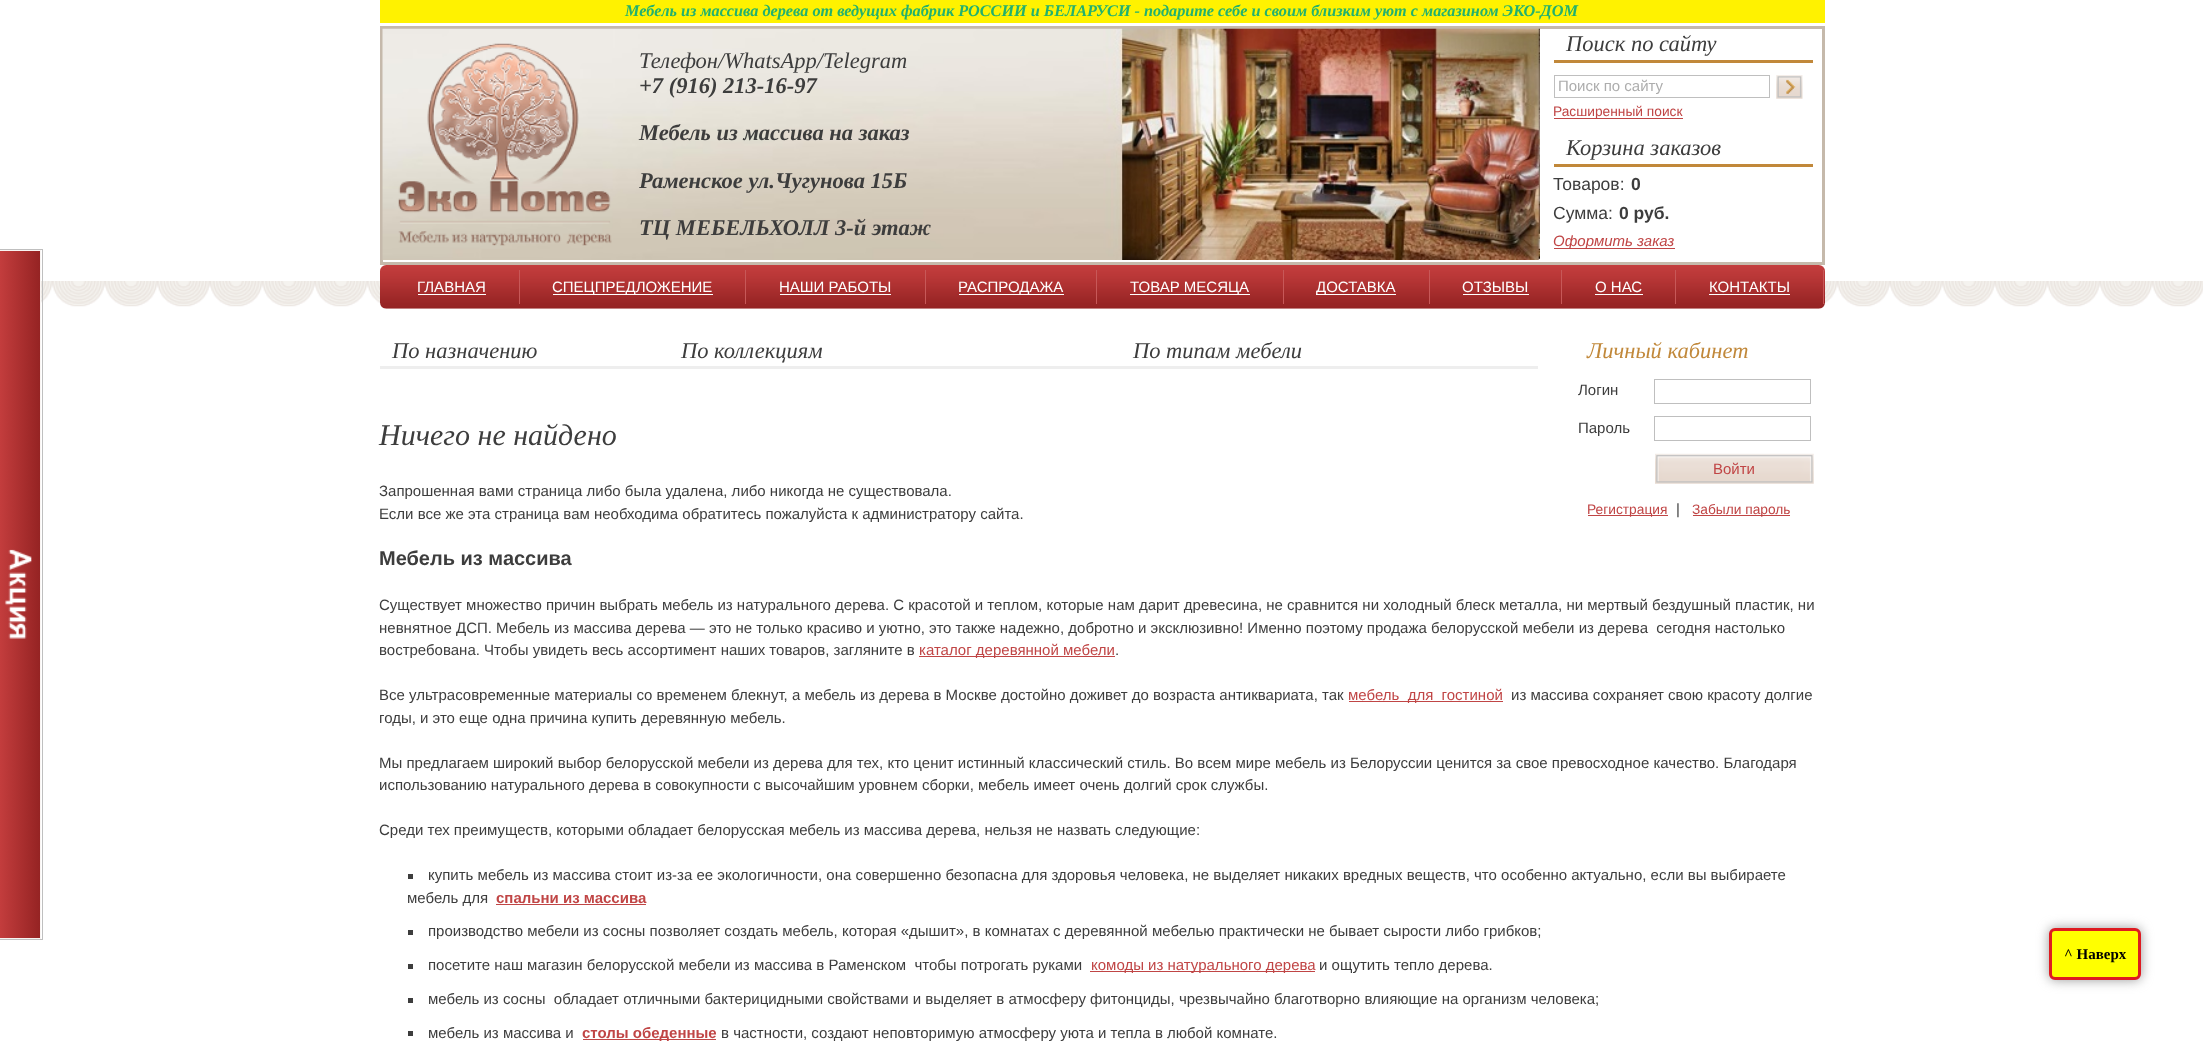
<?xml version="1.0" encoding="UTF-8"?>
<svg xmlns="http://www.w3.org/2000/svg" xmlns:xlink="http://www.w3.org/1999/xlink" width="2203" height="1042">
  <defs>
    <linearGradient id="g1" gradientUnits="userSpaceOnUse" x1="0" y1="594" x2="40" y2="594"><stop offset="0" stop-color="#c33d3d" /><stop offset="1" stop-color="#952323" /></linearGradient>
  </defs>
  <rect width="100%" height="100%" fill="#ffffff" />
  <rect y="251" width="40" height="687" fill="url(#g1)" />
  <rect x="-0.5" y="250.5" width="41" height="688" fill="none" stroke="#f8f4f2" />
  <image x="41" y="281" width="2162" height="26" xlink:href="image2.png" />
  <rect x="-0.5" y="249.5" width="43" height="690" fill="none" stroke="#bfbfbf" />
  <image x="4" y="549" width="28" height="90" xlink:href="image1.png" />
  <rect x="380" width="1445" height="23" fill="#fff200" />
  <rect x="381.5" y="27.5" width="1442" height="236" fill="none" stroke="#c5b9ab" stroke-width="3" />
  <image x="382" y="28" width="1158" height="232" xlink:href="image3.png" />
  <image x="398" y="43" width="214" height="203" xlink:href="image4.png" />
  <rect x="1554" y="60" width="259" height="3" fill="#c1883a" />
  <rect x="1554.5" y="75.5" width="215" height="22" fill="none" stroke="#bfbfbf" />
  <image x="1776" y="75" width="27" height="24" xlink:href="image5.png" />
  <rect x="1554" y="118" width="129" height="1" fill="#c04545" />
  <rect x="1554" y="164" width="259" height="3" fill="#c1883a" />
  <rect x="1554" y="248" width="121" height="1" fill="#c04545" />
  <image x="380" y="265" width="1445" height="44" xlink:href="image6.png" />
  <rect x="418" y="294" width="68" height="1" fill="#ffffff" />
  <rect x="519" y="270" width="1" height="34" fill="#c75858" />
  <rect x="553" y="294" width="160" height="1" fill="#ffffff" />
  <rect x="745" y="270" width="1" height="34" fill="#c75858" />
  <rect x="780" y="294" width="111" height="1" fill="#ffffff" />
  <rect x="925" y="270" width="1" height="34" fill="#c75858" />
  <rect x="959" y="294" width="105" height="1" fill="#ffffff" />
  <rect x="1096" y="270" width="1" height="34" fill="#c75858" />
  <rect x="1130" y="294" width="120" height="1" fill="#ffffff" />
  <rect x="1283" y="270" width="1" height="34" fill="#c75858" />
  <rect x="1316" y="294" width="80" height="1" fill="#ffffff" />
  <rect x="1429" y="270" width="1" height="34" fill="#c75858" />
  <rect x="1463" y="294" width="66" height="1" fill="#ffffff" />
  <rect x="1561" y="270" width="1" height="34" fill="#c75858" />
  <rect x="1595" y="294" width="48" height="1" fill="#ffffff" />
  <rect x="1675" y="270" width="1" height="34" fill="#c75858" />
  <rect x="1709" y="294" width="81" height="1" fill="#ffffff" />
  <rect x="1823" y="270" width="1" height="34" fill="#c75858" />
  <rect x="380" y="366" width="1158" height="3" fill="#eeeeee" />
  <rect x="2049" y="928" width="92" height="52" rx="6" fill="#9a9a9a" filter="blur(6px)" />
  <rect x="2050.5" y="929.5" width="89" height="49" rx="4.5" fill="#ffff00" stroke="#de1b21" stroke-width="3" />
  <rect x="919" y="656" width="196" height="1" fill="#c04545" />
  <rect x="1349" y="701" width="154" height="1" fill="#c04545" />
  <rect x="408" y="874" width="5" height="5" fill="#3d3d3d" />
  <rect x="496" y="904" width="150" height="1" fill="#c04545" />
  <rect x="408" y="930" width="5" height="5" fill="#3d3d3d" />
  <rect x="408" y="964" width="5" height="5" fill="#3d3d3d" />
  <rect x="1090" y="971" width="225" height="1" fill="#c04545" />
  <rect x="408" y="998" width="5" height="5" fill="#3d3d3d" />
  <rect x="408" y="1031" width="5" height="5" fill="#3d3d3d" />
  <rect x="583" y="1039" width="133" height="1" fill="#c04545" />
  <rect x="1654.5" y="379.5" width="156" height="24" fill="none" stroke="#bfbfbf" />
  <rect x="1654.5" y="416.5" width="156" height="24" fill="none" stroke="#bfbfbf" />
  <image x="1655" y="453" width="159" height="31" xlink:href="image7.png" />
  <rect x="1588" y="515" width="80" height="1" fill="#c04545" />
  <rect x="1693" y="515" width="97" height="1" fill="#c04545" />
  <text x="625" y="16" style="font-family: Liberation Serif; font-size: 16.25px; font-weight: bold; font-style: italic; fill: #22b16e">Мебель из массива дерева от ведущих фабрик РОССИИ и БЕЛАРУСИ - подарите себе и своим близким уют с магазином ЭКО-ДОМ</text>
  <text x="639" y="68" style="font-family: Liberation Serif; font-size: 22.5px; font-style: italic; fill: #3d3d3d">Телефон/WhatsApp/Telegram</text>
  <text x="639" y="93" style="font-family: Liberation Serif; font-size: 22.5px; font-weight: bold; font-style: italic; fill: #3d3d3d">+7 (916) 213-16-97</text>
  <text x="639" y="140" style="font-family: Liberation Serif; font-size: 22.5px; font-weight: bold; font-style: italic; fill: #3d3d3d">Мебель из массива на заказ</text>
  <text x="639" y="188" style="font-family: Liberation Serif; font-size: 22.5px; font-weight: bold; font-style: italic; fill: #3d3d3d">Раменское ул.Чугунова 15Б</text>
  <text x="639" y="235" style="font-family: Liberation Serif; font-size: 22.5px; font-weight: bold; font-style: italic; fill: #3d3d3d">ТЦ МЕБЕЛЬХОЛЛ 3-й этаж</text>
  <text x="1566" y="51" style="font-family: Liberation Serif; font-size: 22.5px; font-style: italic; fill: #3d3d3d">Поиск по сайту</text>
  <text x="1558" y="91" style="font-family: Liberation Sans; font-size: 15px; fill: #adadad">Поиск по сайту</text>
  <text x="1553" y="116" style="font-family: Liberation Sans; font-size: 13.75px; fill: #c04545">Расширенный поиск</text>
  <text x="1566" y="155" style="font-family: Liberation Serif; font-size: 22.5px; font-style: italic; fill: #3d3d3d">Корзина заказов</text>
  <text x="1553" y="190" style="font-family: Liberation Sans; font-size: 17.5px; fill: #3d3d3d">Товаров:</text>
  <text x="1631" y="190" style="font-family: Liberation Sans; font-size: 17.5px; font-weight: bold; fill: #3d3d3d">0</text>
  <text x="1553" y="219" style="font-family: Liberation Sans; font-size: 17.5px; fill: #3d3d3d">Сумма:</text>
  <text x="1619" y="219" style="font-family: Liberation Sans; font-size: 17.5px; font-weight: bold; fill: #3d3d3d">0 руб.</text>
  <text x="1553" y="246" style="font-family: Liberation Sans; font-size: 15px; font-style: italic; fill: #c04545">Оформить заказ</text>
  <text x="417" y="292" style="font-family: Liberation Sans; font-size: 15px; fill: #ffffff">ГЛАВНАЯ</text>
  <text x="552" y="292" style="font-family: Liberation Sans; font-size: 15px; fill: #ffffff">СПЕЦПРЕДЛОЖЕНИЕ</text>
  <text x="779" y="292" style="font-family: Liberation Sans; font-size: 15px; fill: #ffffff">НАШИ РАБОТЫ</text>
  <text x="958" y="292" style="font-family: Liberation Sans; font-size: 15px; fill: #ffffff">РАСПРОДАЖА</text>
  <text x="1130" y="292" style="font-family: Liberation Sans; font-size: 15px; fill: #ffffff">ТОВАР МЕСЯЦА</text>
  <text x="1316" y="292" style="font-family: Liberation Sans; font-size: 15px; fill: #ffffff">ДОСТАВКА</text>
  <text x="1462" y="292" style="font-family: Liberation Sans; font-size: 15px; fill: #ffffff">ОТЗЫВЫ</text>
  <text x="1595" y="292" style="font-family: Liberation Sans; font-size: 15px; fill: #ffffff">О НАС</text>
  <text x="1709" y="292" style="font-family: Liberation Sans; font-size: 15px; fill: #ffffff">КОНТАКТЫ</text>
  <text x="392" y="358" style="font-family: Liberation Serif; font-size: 22.5px; font-style: italic; fill: #3d3d3d">По назначению</text>
  <text x="681" y="358" style="font-family: Liberation Serif; font-size: 22.5px; font-style: italic; fill: #3d3d3d">По коллекциям</text>
  <text x="1133" y="358" style="font-family: Liberation Serif; font-size: 22.5px; font-style: italic; fill: #3d3d3d">По типам мебели</text>
  <text x="379" y="445" style="font-family: Liberation Serif; font-size: 30px; font-style: italic; fill: #3d3d3d">Ничего не найдено</text>
  <text x="379" y="496" style="font-family: Liberation Sans; font-size: 15px; fill: #3d3d3d">Запрошенная вами страница либо была удалена, либо никогда не существовала.</text>
  <text x="379" y="519" style="font-family: Liberation Sans; font-size: 15px; fill: #3d3d3d">Если все же эта страница вам необходима обратитесь пожалуйста к администратору сайта.</text>
  <text x="2064" y="959" style="font-family: Liberation Serif; font-size: 15px; font-weight: bold; fill: #000000">^ Наверх</text>
  <text x="379" y="565" style="font-family: Liberation Sans; font-size: 20px; font-weight: bold; fill: #3d3d3d">Мебель из массива</text>
  <text x="379" y="610" style="font-family: Liberation Sans; font-size: 15px; fill: #3d3d3d">Существует множество причин выбрать мебель из натурального дерева. С красотой и теплом, которые нам дарит древесина, не сравнится ни холодный блеск металла, ни мертвый бездушный пластик, ни</text>
  <text x="379" y="633" style="font-family: Liberation Sans; font-size: 15px; fill: #3d3d3d" xml:space="preserve">невнятное ДСП. Мебель из массива дерева — это не только красиво и уютно, это также надежно, добротно и эксклюзивно! Именно поэтому продажа белорусской мебели из дерева  сегодня настолько</text>
  <text x="379" y="655" style="font-family: Liberation Sans; font-size: 15px; fill: #3d3d3d">востребована. Чтобы увидеть весь ассортимент наших товаров, загляните в</text>
  <text x="919" y="655" style="font-family: Liberation Sans; font-size: 15px; fill: #c04545">каталог деревянной мебели</text>
  <text x="1115" y="655" style="font-family: Liberation Sans; font-size: 15px; fill: #3d3d3d">.</text>
  <text x="379" y="700" style="font-family: Liberation Sans; font-size: 15px; fill: #3d3d3d">Все ультрасовременные материалы со временем блекнут, а мебель из дерева в Москве достойно доживет до возраста антиквариата, так</text>
  <text x="1348" y="700" style="font-family: Liberation Sans; font-size: 15px; fill: #c04545" xml:space="preserve">мебель  для  гостиной</text>
  <text x="1511" y="700" style="font-family: Liberation Sans; font-size: 15px; fill: #3d3d3d">из массива сохраняет свою красоту долгие</text>
  <text x="379" y="723" style="font-family: Liberation Sans; font-size: 15px; fill: #3d3d3d">годы, и это еще одна причина купить деревянную мебель.</text>
  <text x="379" y="768" style="font-family: Liberation Sans; font-size: 15px; fill: #3d3d3d">Мы предлагаем широкий выбор белорусской мебели из дерева для тех, кто ценит истинный классический стиль. Во всем мире мебель из Белоруссии ценится за свое превосходное качество. Благодаря</text>
  <text x="379" y="790" style="font-family: Liberation Sans; font-size: 15px; fill: #3d3d3d">использованию натурального дерева в совокупности с высочайшим уровнем сборки, мебель имеет очень долгий срок службы.</text>
  <text x="379" y="835" style="font-family: Liberation Sans; font-size: 15px; fill: #3d3d3d">Среди тех преимуществ, которыми обладает белорусская мебель из массива дерева, нельзя не назвать следующие:</text>
  <text x="428" y="880" style="font-family: Liberation Sans; font-size: 15px; fill: #3d3d3d">купить мебель из массива стоит из-за ее экологичности, она совершенно безопасна для здоровья человека, не выделяет никаких вредных веществ, что особенно актуально, если вы выбираете</text>
  <text x="407" y="903" style="font-family: Liberation Sans; font-size: 15px; fill: #3d3d3d">мебель для</text>
  <text x="496" y="903" style="font-family: Liberation Sans; font-size: 15px; font-weight: bold; fill: #c04545">спальни из массива</text>
  <text x="428" y="936" style="font-family: Liberation Sans; font-size: 15px; fill: #3d3d3d">производство мебели из сосны позволяет создать мебель, которая «дышит», в комнатах с деревянной мебелью практически не бывает сырости либо грибков;</text>
  <text x="428" y="970" style="font-family: Liberation Sans; font-size: 15px; fill: #3d3d3d" xml:space="preserve">посетите наш магазин белорусской мебели из массива в Раменском  чтобы потрогать руками</text>
  <text x="1091" y="970" style="font-family: Liberation Sans; font-size: 15px; fill: #c04545">комоды из натурального дерева</text>
  <text x="1319" y="970" style="font-family: Liberation Sans; font-size: 15px; fill: #3d3d3d">и ощутить тепло дерева.</text>
  <text x="428" y="1004" style="font-family: Liberation Sans; font-size: 15px; fill: #3d3d3d" xml:space="preserve">мебель из сосны  обладает отличными бактерицидными свойствами и выделяет в атмосферу фитонциды, чрезвычайно благотворно влияющие на организм человека;</text>
  <text x="428" y="1038" style="font-family: Liberation Sans; font-size: 15px; fill: #3d3d3d">мебель из массива и</text>
  <text x="582" y="1038" style="font-family: Liberation Sans; font-size: 15px; font-weight: bold; fill: #c04545">столы обеденные</text>
  <text x="721" y="1038" style="font-family: Liberation Sans; font-size: 15px; fill: #3d3d3d">в частности, создают неповторимую атмосферу уюта и тепла в любой комнате.</text>
  <text x="1587" y="358" style="font-family: Liberation Serif; font-size: 22.5px; font-style: italic; fill: #c1883a">Личный кабинет</text>
  <text x="1578" y="395" style="font-family: Liberation Sans; font-size: 15px; fill: #3d3d3d">Логин</text>
  <text x="1578" y="433" style="font-family: Liberation Sans; font-size: 15px; fill: #3d3d3d">Пароль</text>
  <text x="1713" y="474" style="font-family: Liberation Sans; font-size: 15px; fill: #c04545">Войти</text>
  <text x="1587" y="514" style="font-family: Liberation Sans; font-size: 13.75px; fill: #c04545">Регистрация</text>
  <text x="1676" y="514" style="font-family: Liberation Sans; font-size: 15px; fill: #3d3d3d">|</text>
  <text x="1692" y="514" style="font-family: Liberation Sans; font-size: 13.75px; fill: #c04545">Забыли пароль</text>
</svg>
